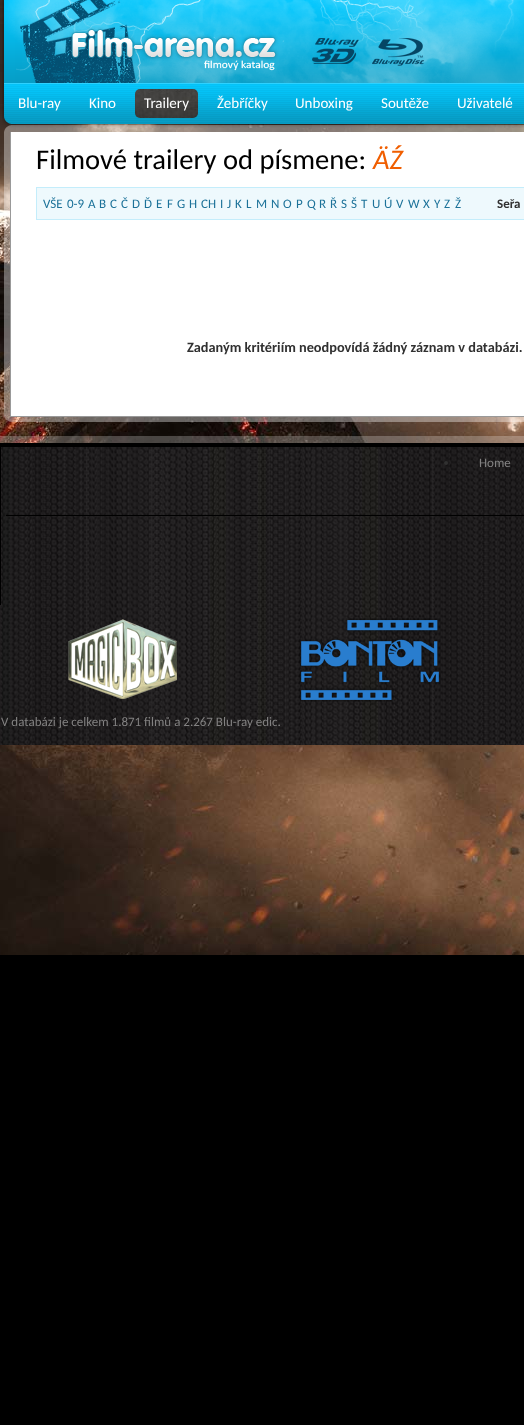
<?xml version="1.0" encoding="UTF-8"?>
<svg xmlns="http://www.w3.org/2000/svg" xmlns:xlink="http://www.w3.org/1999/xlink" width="524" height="1425">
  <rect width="100%" height="100%" fill="#000000" />
  <image x="0" y="0" width="524" height="955" xlink:href="image1.png" />
  <image x="2" y="0" width="522" height="132" xlink:href="image2.png" />
  <image x="69" y="27" width="355" height="44" xlink:href="image3.png" />
  <image x="135" y="89" width="63" height="29" xlink:href="image4.png" />
  <image x="4" y="132" width="520" height="284" xlink:href="image5.png" />
  <rect x="36.5" y="187.5" width="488" height="32" fill="#eef9fd" stroke="#c4edfb" />
  <image x="4" y="416" width="520" height="6" xlink:href="image6.png" />
  <image x="0" y="447" width="524" height="298" xlink:href="image8.png" />
  <rect y="445" width="1" height="160" fill="#000000" />
  <image x="0" y="436" width="524" height="11" xlink:href="image7.png" />
  <rect x="6" y="515" width="518" height="1" fill="#000000" />
  <circle cx="446" cy="463" r="2" fill="#313131" />
  <circle cx="498" cy="463" r="2" fill="#313131" />
  <image x="68" y="619" width="109" height="80" xlink:href="image9.png" />
  <image x="299" y="618" width="142" height="84" xlink:href="image10.png" />
  <text x="18" y="108" style="font-family: Carlito; font-size: 15px; fill: #ffffff">Blu-ray</text>
  <text x="89" y="108" style="font-family: Carlito; font-size: 15px; fill: #ffffff">Kino</text>
  <text x="144" y="108" style="font-family: Carlito; font-size: 15px; fill: #ffffff">Trailery</text>
  <text x="217" y="108" style="font-family: Carlito; font-size: 15px; fill: #ffffff">Žebříčky</text>
  <text x="295" y="108" style="font-family: Carlito; font-size: 15px; fill: #ffffff">Unboxing</text>
  <text x="381" y="108" style="font-family: Carlito; font-size: 15px; fill: #ffffff">Soutěže</text>
  <text x="457" y="108" style="font-family: Carlito; font-size: 15px; fill: #ffffff">Uživatelé</text>
  <text x="36" y="169" style="font-family: Carlito; font-size: 28.6px; fill: #000000">Filmové trailery od písmene:</text>
  <text x="373" y="169" style="font-family: Carlito; font-size: 28.6px; font-style: italic; fill: #f05e00">ÄŹ</text>
  <text x="43" y="208" style="font-family: Carlito; font-size: 13px; fill: #1c7299">VŠE</text>
  <text x="67" y="208" style="font-family: Carlito; font-size: 13px; fill: #1c7299">0-9</text>
  <text x="88" y="208" style="font-family: Carlito; font-size: 13px; fill: #1c7299">A</text>
  <text x="99" y="208" style="font-family: Carlito; font-size: 13px; fill: #1c7299">B</text>
  <text x="110" y="208" style="font-family: Carlito; font-size: 13px; fill: #1c7299">C</text>
  <text x="121" y="208" style="font-family: Carlito; font-size: 13px; fill: #1c7299">Č</text>
  <text x="132" y="208" style="font-family: Carlito; font-size: 13px; fill: #1c7299">D</text>
  <text x="144" y="208" style="font-family: Carlito; font-size: 13px; fill: #1c7299">Ď</text>
  <text x="156" y="208" style="font-family: Carlito; font-size: 13px; fill: #1c7299">E</text>
  <text x="167" y="208" style="font-family: Carlito; font-size: 13px; fill: #1c7299">F</text>
  <text x="177" y="208" style="font-family: Carlito; font-size: 13px; fill: #1c7299">G</text>
  <text x="189" y="208" style="font-family: Carlito; font-size: 13px; fill: #1c7299">H</text>
  <text x="201" y="208" style="font-family: Carlito; font-size: 13px; fill: #1c7299">CH</text>
  <text x="220" y="208" style="font-family: Carlito; font-size: 13px; fill: #1c7299">I</text>
  <text x="227" y="208" style="font-family: Carlito; font-size: 13px; fill: #1c7299">J</text>
  <text x="235" y="208" style="font-family: Carlito; font-size: 13px; fill: #1c7299">K</text>
  <text x="246" y="208" style="font-family: Carlito; font-size: 13px; fill: #1c7299">L</text>
  <text x="256" y="208" style="font-family: Carlito; font-size: 13px; fill: #1c7299">M</text>
  <text x="271" y="208" style="font-family: Carlito; font-size: 13px; fill: #1c7299">N</text>
  <text x="283" y="208" style="font-family: Carlito; font-size: 13px; fill: #1c7299">O</text>
  <text x="296" y="208" style="font-family: Carlito; font-size: 13px; fill: #1c7299">P</text>
  <text x="307" y="208" style="font-family: Carlito; font-size: 13px; fill: #1c7299">Q</text>
  <text x="319" y="208" style="font-family: Carlito; font-size: 13px; fill: #1c7299">R</text>
  <text x="330" y="208" style="font-family: Carlito; font-size: 13px; fill: #1c7299">Ř</text>
  <text x="341" y="208" style="font-family: Carlito; font-size: 13px; fill: #1c7299">S</text>
  <text x="351" y="208" style="font-family: Carlito; font-size: 13px; fill: #1c7299">Š</text>
  <text x="361" y="208" style="font-family: Carlito; font-size: 13px; fill: #1c7299">T</text>
  <text x="372" y="208" style="font-family: Carlito; font-size: 13px; fill: #1c7299">U</text>
  <text x="384" y="208" style="font-family: Carlito; font-size: 13px; fill: #1c7299">Ú</text>
  <text x="396" y="208" style="font-family: Carlito; font-size: 13px; fill: #1c7299">V</text>
  <text x="408" y="208" style="font-family: Carlito; font-size: 13px; fill: #1c7299">W</text>
  <text x="423" y="208" style="font-family: Carlito; font-size: 13px; fill: #1c7299">X</text>
  <text x="434" y="208" style="font-family: Carlito; font-size: 13px; fill: #1c7299">Y</text>
  <text x="444" y="208" style="font-family: Carlito; font-size: 13px; fill: #1c7299">Z</text>
  <text x="455" y="208" style="font-family: Carlito; font-size: 13px; fill: #1c7299">Ž</text>
  <text x="497" y="208" style="font-family: Carlito; font-size: 13px; font-weight: bold; fill: #313131">Seřa</text>
  <text x="187" y="352" style="font-family: Carlito; font-size: 14.3px; font-weight: bold; fill: #313131">Zadaným kritériím neodpovídá žádný záznam v databázi.</text>
  <text x="479" y="467" style="font-family: Carlito; font-size: 13px; fill: #828181">Home</text>
  <text x="1" y="726" style="font-family: Carlito; font-size: 13px; fill: #828181">V databázi je celkem 1.871 filmů a 2.267 Blu-ray edic.</text>
</svg>
